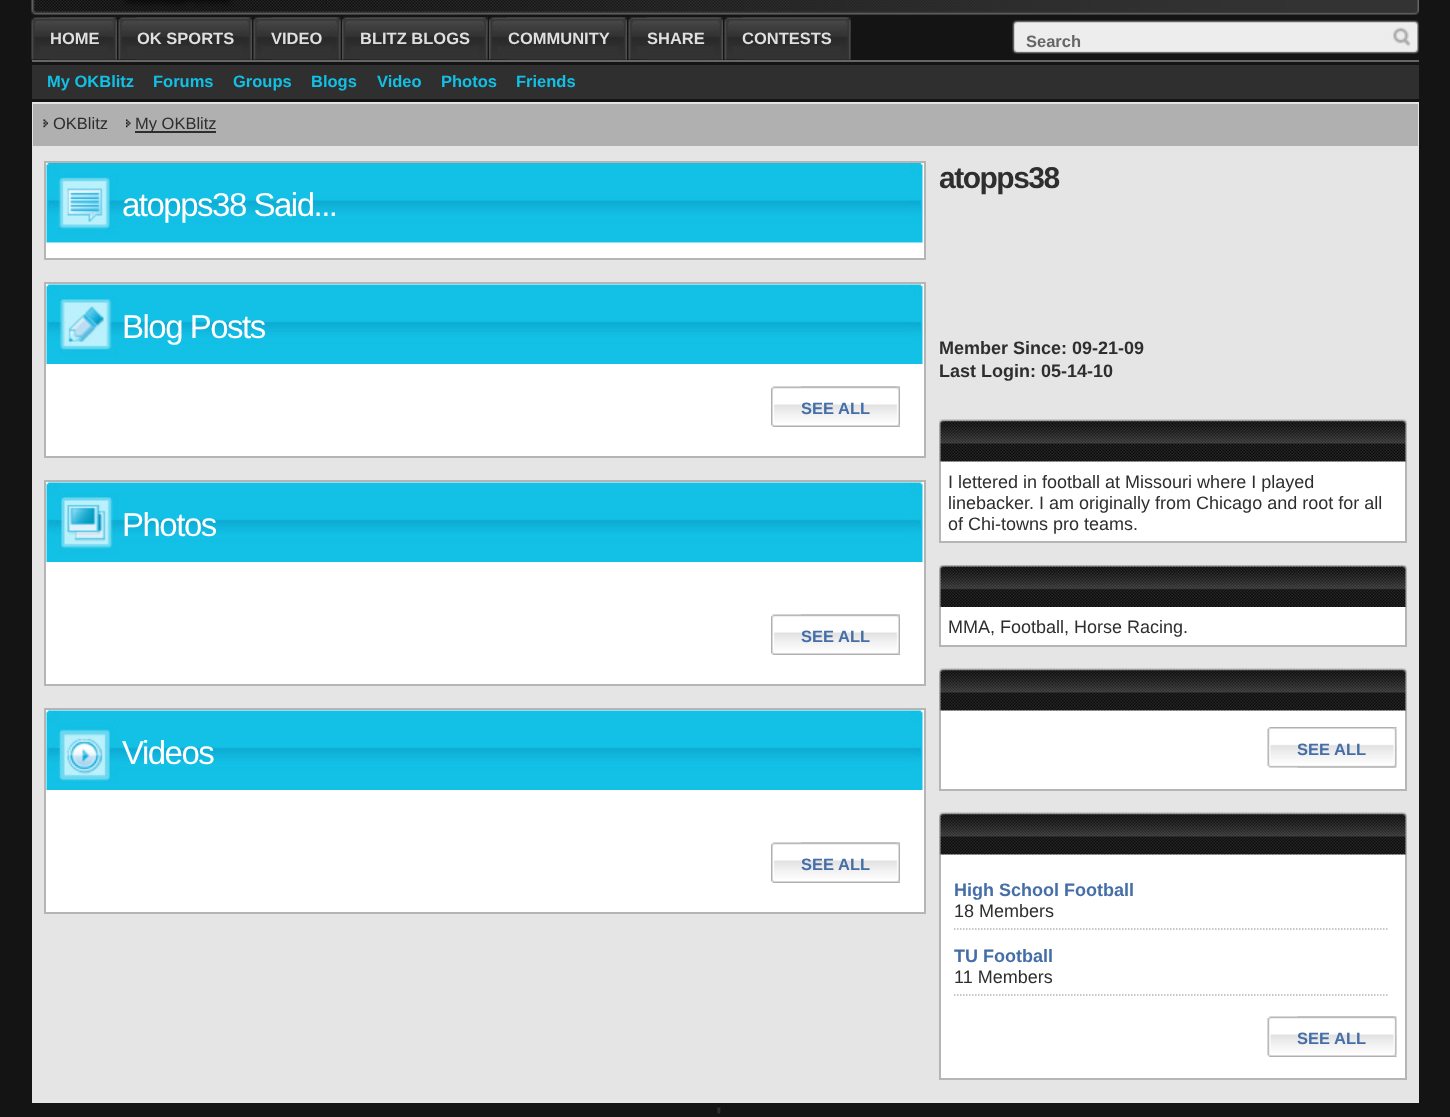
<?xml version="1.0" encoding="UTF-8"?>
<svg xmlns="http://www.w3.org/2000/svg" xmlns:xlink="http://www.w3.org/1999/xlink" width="1450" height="1117">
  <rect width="100%" height="100%" fill="#141414" />
  <image x="31" y="0" width="1388" height="15" xlink:href="image1.png" />
  <rect x="32" y="60" width="1387" height="2" fill="#666666" />
  <image x="31" y="17" width="86" height="43" xlink:href="image2.png" />
  <image x="49" y="17" width="68" height="43" xlink:href="image3.png" />
  <image x="118" y="17" width="134" height="43" xlink:href="image4.png" />
  <image x="136" y="17" width="116" height="43" xlink:href="image5.png" />
  <image x="253" y="17" width="88" height="43" xlink:href="image6.png" />
  <image x="271" y="17" width="70" height="43" xlink:href="image7.png" />
  <image x="342" y="17" width="146" height="43" xlink:href="image8.png" />
  <image x="360" y="17" width="128" height="43" xlink:href="image9.png" />
  <image x="489" y="17" width="138" height="43" xlink:href="image10.png" />
  <image x="507" y="17" width="120" height="43" xlink:href="image11.png" />
  <image x="628" y="17" width="95" height="43" xlink:href="image12.png" />
  <image x="646" y="17" width="77" height="43" xlink:href="image13.png" />
  <image x="724" y="17" width="127" height="43" xlink:href="image14.png" />
  <image x="742" y="17" width="109" height="43" xlink:href="image15.png" />
  <image x="1012" y="20" width="374" height="34" xlink:href="image16.png" />
  <image x="1386" y="20" width="33" height="34" xlink:href="image17.png" />
  <rect x="32" y="65" width="1387" height="34" fill="#2f2f2f" />
  <rect x="32" y="102" width="1387" height="1001" fill="#e5e5e5" />
  <rect x="33" y="104" width="1385" height="42" fill="#b0b0b0" />
  <image x="43" y="119" width="5" height="9" xlink:href="image18.png" />
  <image x="126" y="119" width="5" height="9" xlink:href="image19.png" />
  <rect x="135" y="131" width="81" height="2" fill="#2e2e2e" />
  <rect x="45" y="162" width="880" height="97" fill="#ffffff" stroke="#b5b5b5" stroke-width="2" />
  <image x="46" y="163" width="877" height="80" xlink:href="image20.png" />
  <rect x="45" y="283" width="880" height="174" fill="#ffffff" stroke="#b5b5b5" stroke-width="2" />
  <image x="46" y="284" width="877" height="80" xlink:href="image21.png" />
  <image x="771" y="386" width="129" height="41" xlink:href="image22.png" />
  <image x="801" y="386" width="99" height="41" xlink:href="image23.png" />
  <rect x="45" y="481" width="880" height="204" fill="#ffffff" stroke="#b5b5b5" stroke-width="2" />
  <image x="46" y="482" width="877" height="80" xlink:href="image24.png" />
  <image x="771" y="614" width="129" height="41" xlink:href="image22.png" />
  <image x="801" y="614" width="99" height="41" xlink:href="image23.png" />
  <rect x="45" y="709" width="880" height="204" fill="#ffffff" stroke="#b5b5b5" stroke-width="2" />
  <image x="46" y="710" width="877" height="80" xlink:href="image25.png" />
  <image x="771" y="842" width="129" height="41" xlink:href="image22.png" />
  <image x="801" y="842" width="99" height="41" xlink:href="image23.png" />
  <rect x="941" y="461" width="464" height="80" fill="#ffffff" />
  <rect x="940" y="421" width="466" height="121" fill="none" stroke="#b5b5b5" stroke-width="2" />
  <image x="939" y="419" width="468" height="43" xlink:href="image26.png" />
  <rect x="941" y="607" width="464" height="38" fill="#ffffff" />
  <rect x="940" y="567" width="466" height="79" fill="none" stroke="#b5b5b5" stroke-width="2" />
  <image x="939" y="565" width="468" height="42" xlink:href="image27.png" />
  <rect x="941" y="710" width="464" height="79" fill="#ffffff" />
  <rect x="940" y="670" width="466" height="120" fill="none" stroke="#b5b5b5" stroke-width="2" />
  <image x="939" y="668" width="468" height="43" xlink:href="image26.png" />
  <image x="1267" y="727" width="130" height="41" xlink:href="image28.png" />
  <image x="1297" y="727" width="100" height="41" xlink:href="image29.png" />
  <rect x="941" y="854" width="464" height="224" fill="#ffffff" />
  <rect x="940" y="814" width="466" height="265" fill="none" stroke="#b5b5b5" stroke-width="2" />
  <image x="939" y="812" width="468" height="43" xlink:href="image26.png" />
  <path d="M 954 929 h 435" fill="none" stroke="#b5b5b5" stroke-width="1.5" stroke-dasharray="1.5 1.5" />
  <path d="M 954 995 h 435" fill="none" stroke="#b5b5b5" stroke-width="1.5" stroke-dasharray="1.5 1.5" />
  <image x="1267" y="1016" width="130" height="41" xlink:href="image30.png" />
  <image x="1297" y="1016" width="100" height="41" xlink:href="image31.png" />
  <text x="50" y="44" style="font-family: Liberation Sans; font-size: 16.5px; font-weight: bold; fill: #dfdfe0">HOME</text>
  <text x="137" y="44" style="font-family: Liberation Sans; font-size: 16.5px; font-weight: bold; fill: #dfdfe0">OK SPORTS</text>
  <text x="271" y="44" style="font-family: Liberation Sans; font-size: 16.5px; font-weight: bold; fill: #dfdfe0">VIDEO</text>
  <text x="360" y="44" style="font-family: Liberation Sans; font-size: 16.5px; font-weight: bold; fill: #dfdfe0">BLITZ BLOGS</text>
  <text x="508" y="44" style="font-family: Liberation Sans; font-size: 16.5px; font-weight: bold; fill: #dfdfe0">COMMUNITY</text>
  <text x="647" y="44" style="font-family: Liberation Sans; font-size: 16.5px; font-weight: bold; fill: #dfdfe0">SHARE</text>
  <text x="742" y="44" style="font-family: Liberation Sans; font-size: 16.5px; font-weight: bold; fill: #dfdfe0">CONTESTS</text>
  <text x="1026" y="47" style="font-family: Liberation Sans; font-size: 16.5px; font-weight: bold; fill: #666666">Search</text>
  <text x="47" y="87" style="font-family: Liberation Sans; font-size: 16.5px; font-weight: bold; fill: #13c0e5">My OKBlitz</text>
  <text x="153" y="87" style="font-family: Liberation Sans; font-size: 16.5px; font-weight: bold; fill: #13c0e5">Forums</text>
  <text x="233" y="87" style="font-family: Liberation Sans; font-size: 16.5px; font-weight: bold; fill: #13c0e5">Groups</text>
  <text x="311" y="87" style="font-family: Liberation Sans; font-size: 16.5px; font-weight: bold; fill: #13c0e5">Blogs</text>
  <text x="377" y="87" style="font-family: Liberation Sans; font-size: 16.5px; font-weight: bold; fill: #13c0e5">Video</text>
  <text x="441" y="87" style="font-family: Liberation Sans; font-size: 16.5px; font-weight: bold; fill: #13c0e5">Photos</text>
  <text x="516" y="87" style="font-family: Liberation Sans; font-size: 16.5px; font-weight: bold; fill: #13c0e5">Friends</text>
  <text x="53" y="129" style="font-family: Liberation Sans; font-size: 16.5px; fill: #2e2e2e">OKBlitz</text>
  <text x="135" y="129" style="font-family: Liberation Sans; font-size: 16.5px; fill: #2e2e2e">My OKBlitz</text>
  <text x="122" y="216" style="font-family: Liberation Sans; font-size: 33px; letter-spacing: -1.5px; fill: #ffffff">atopps38 Said...</text>
  <text x="122" y="338" style="font-family: Liberation Sans; font-size: 33px; letter-spacing: -1.5px; fill: #ffffff">Blog Posts</text>
  <text x="801" y="414" style="font-family: Liberation Sans; font-size: 16.5px; font-weight: bold; fill: #456ea7">SEE ALL</text>
  <text x="122" y="536" style="font-family: Liberation Sans; font-size: 33px; letter-spacing: -1.5px; fill: #ffffff">Photos</text>
  <text x="801" y="642" style="font-family: Liberation Sans; font-size: 16.5px; font-weight: bold; fill: #456ea7">SEE ALL</text>
  <text x="122" y="764" style="font-family: Liberation Sans; font-size: 33px; letter-spacing: -1.5px; fill: #ffffff">Videos</text>
  <text x="801" y="870" style="font-family: Liberation Sans; font-size: 16.5px; font-weight: bold; fill: #456ea7">SEE ALL</text>
  <text x="939" y="188" style="font-family: Liberation Sans; font-size: 30px; font-weight: bold; letter-spacing: -1.5px; fill: #2e2e2e">atopps38</text>
  <text x="939" y="354" style="font-family: Liberation Sans; font-size: 18px; font-weight: bold; fill: #2e2e2e">Member Since: 09-21-09</text>
  <text x="939" y="377" style="font-family: Liberation Sans; font-size: 18px; font-weight: bold; fill: #2e2e2e">Last Login: 05-14-10</text>
  <text x="948" y="488" style="font-family: Liberation Sans; font-size: 18px; fill: #2e2e2e">I lettered in football at Missouri where I played</text>
  <text x="948" y="509" style="font-family: Liberation Sans; font-size: 18px; fill: #2e2e2e">linebacker. I am originally from Chicago and root for all</text>
  <text x="948" y="530" style="font-family: Liberation Sans; font-size: 18px; fill: #2e2e2e">of Chi-towns pro teams.</text>
  <text x="948" y="633" style="font-family: Liberation Sans; font-size: 18px; fill: #2e2e2e">MMA, Football, Horse Racing.</text>
  <text x="1297" y="755" style="font-family: Liberation Sans; font-size: 16.5px; font-weight: bold; fill: #456ea7">SEE ALL</text>
  <text x="954" y="896" style="font-family: Liberation Sans; font-size: 18px; font-weight: bold; fill: #456ea7">High School Football</text>
  <text x="954" y="917" style="font-family: Liberation Sans; font-size: 18px; fill: #2e2e2e">18 Members</text>
  <text x="954" y="962" style="font-family: Liberation Sans; font-size: 18px; font-weight: bold; fill: #456ea7">TU Football</text>
  <text x="954" y="983" style="font-family: Liberation Sans; font-size: 18px; fill: #2e2e2e">11 Members</text>
  <text x="1297" y="1044" style="font-family: Liberation Sans; font-size: 16.5px; font-weight: bold; fill: #456ea7">SEE ALL</text>
  <text x="716" y="1124" style="font-family: Liberation Sans; font-size: 24px; font-weight: bold; fill: #2e2e2e">'</text>
</svg>
